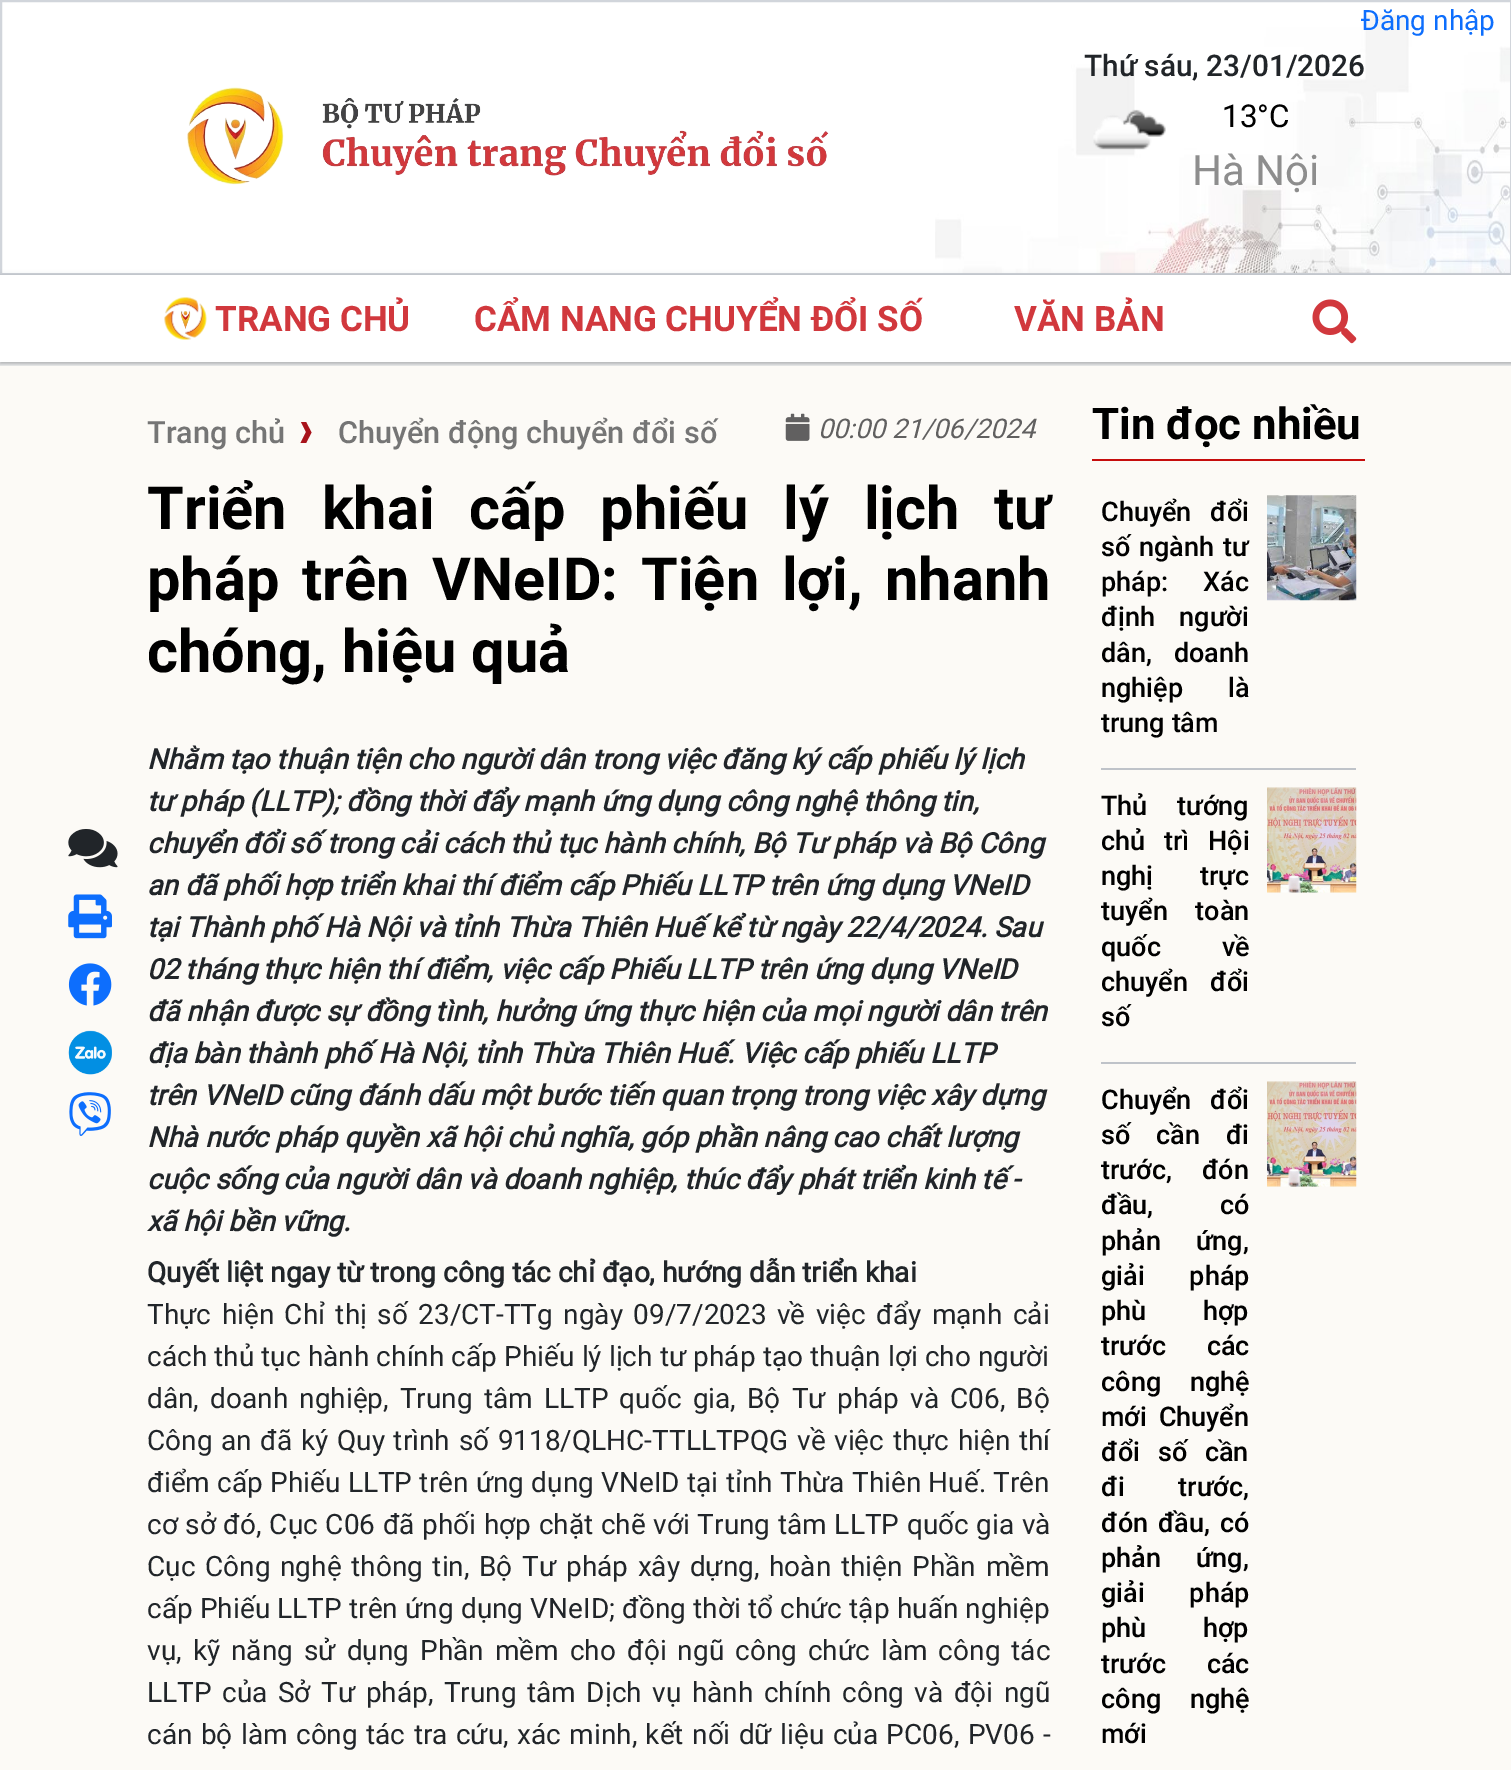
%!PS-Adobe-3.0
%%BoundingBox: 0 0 1511 1770
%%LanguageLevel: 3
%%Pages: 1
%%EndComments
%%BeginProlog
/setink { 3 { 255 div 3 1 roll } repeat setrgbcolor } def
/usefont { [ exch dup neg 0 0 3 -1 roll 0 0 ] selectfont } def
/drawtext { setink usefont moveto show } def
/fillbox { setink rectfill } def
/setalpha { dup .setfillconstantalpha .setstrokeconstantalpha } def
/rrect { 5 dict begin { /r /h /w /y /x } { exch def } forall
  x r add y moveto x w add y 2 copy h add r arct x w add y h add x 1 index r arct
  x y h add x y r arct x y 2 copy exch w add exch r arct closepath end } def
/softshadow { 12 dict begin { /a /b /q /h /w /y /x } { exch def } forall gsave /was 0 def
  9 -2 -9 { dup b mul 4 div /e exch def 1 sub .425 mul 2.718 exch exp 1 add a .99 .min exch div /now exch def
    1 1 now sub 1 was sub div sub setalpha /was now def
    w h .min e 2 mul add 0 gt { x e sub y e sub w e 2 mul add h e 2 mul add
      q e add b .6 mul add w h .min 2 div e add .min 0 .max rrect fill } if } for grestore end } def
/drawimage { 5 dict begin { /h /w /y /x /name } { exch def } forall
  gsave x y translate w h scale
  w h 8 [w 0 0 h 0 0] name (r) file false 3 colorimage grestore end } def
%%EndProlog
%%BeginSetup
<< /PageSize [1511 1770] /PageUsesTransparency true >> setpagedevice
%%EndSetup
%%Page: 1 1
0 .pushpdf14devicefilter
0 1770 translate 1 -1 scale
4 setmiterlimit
0 0 1511 1770 255 255 255 fillbox
(assets/img1.rgb) 935 14 575 259 drawimage
209 213 219 setink
2 setlinewidth
1 1 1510 273 rectstroke
(Đăng nhập) 1361 30 /Roboto-Regular 28 13 110 253 drawtext
(assets/img2.rgb) 187 87 642 98 drawimage
(Thứ sáu, 23/01/2026) 1084 76 /Roboto-Medium 29.75 33 37 41 drawtext
(assets/img3.rgb) 1093 109 73 41 drawimage
(13°C) 1222 127 /Roboto-Regular 31.5 0 0 0 drawtext
(Hà Nội) 1192 185 /Roboto-Regular 42 141 141 141 drawtext
60 64 67 setink
-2 275 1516 91 0 2.5 0.15 softshadow
0 277 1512 87 0 2 0.3 softshadow
0 275 1511 87 255 255 255 fillbox
(assets/img4.rgb) 164 297 43 43 drawimage
(TRANG CHỦ) 215 331 /Roboto-Bold 35 209 56 61 drawtext
(CẨM NANG CHUYỂN ĐỔI SỐ) 474 331 /Roboto-Bold 35 209 56 61 drawtext
(VĂN BẢN) 1014 331 /Roboto-Bold 35 209 56 61 drawtext
(assets/img5.rgb) 1312 299 45 45 drawimage
0 366 1511 1404 252 250 246 fillbox
(Trang chủ) 147 443 /Roboto-Medium 30.6 117 117 117 drawtext
168 19 27 setink
306 422 moveto 311.5 432.5 lineto 306 443 lineto 300.5 443 lineto 306 432 lineto 301 422 lineto closepath fill
(Chuyển động chuyển đổi số) 338 443 /Roboto-Medium 30.6 117 117 117 drawtext
(assets/img6.rgb) 785 413 25 28 drawimage
(00:00 21/06/2024) 818 438 /Roboto-Italic 27 97 96 96 drawtext
/Roboto-Bold 59.5 usefont
0 0 0 setink
147 529 moveto 20 0 32 (Triển khai cấp phiếu lý lịch tư) widthshow
147 600 moveto 8 0 32 (pháp trên VNeID: Tiện lợi, nhanh) widthshow
(chóng, hiệu quả) 147 672 /Roboto-Bold 59.5 0 0 0 drawtext
(assets/img7.rgb) 68 829 50 39 drawimage
(assets/img8.rgb) 68 894 44 45 drawimage
(assets/img9.rgb) 68 963 44 43 drawimage
(assets/img10.rgb) 68 1030 44 45 drawimage
(assets/img11.rgb) 69 1092 42 44 drawimage
(Nhằm tạo thuận tiện cho người dân trong việc đăng ký cấp phiếu lý lịch) 147 769 /Roboto-BoldItalic 28 33 37 41 drawtext
(tư pháp \(LLTP\); đồng thời đẩy mạnh ứng dụng công nghệ thông tin,) 147 811 /Roboto-BoldItalic 28 33 37 41 drawtext
(chuyển đổi số trong cải cách thủ tục hành chính, Bộ Tư pháp và Bộ Công) 147 853 /Roboto-BoldItalic 28 33 37 41 drawtext
(an đã phối hợp triển khai thí điểm cấp Phiếu LLTP trên ứng dụng VNeID) 147 895 /Roboto-BoldItalic 28 33 37 41 drawtext
(tại Thành phố Hà Nội và tỉnh Thừa Thiên Huế kể từ ngày 22/4/2024. Sau) 147 937 /Roboto-BoldItalic 28 33 37 41 drawtext
(02 tháng thực hiện thí điểm, việc cấp Phiếu LLTP trên ứng dụng VNeID) 147 979 /Roboto-BoldItalic 28 33 37 41 drawtext
(đã nhận được sự đồng tình, hưởng ứng thực hiện của mọi người dân trên) 147 1021 /Roboto-BoldItalic 28 33 37 41 drawtext
(địa bàn thành phố Hà Nội, tỉnh Thừa Thiên Huế. Việc cấp phiếu LLTP) 147 1063 /Roboto-BoldItalic 28 33 37 41 drawtext
(trên VNeID cũng đánh dấu một bước tiến quan trọng trong việc xây dựng) 147 1105 /Roboto-BoldItalic 28 33 37 41 drawtext
(Nhà nước pháp quyền xã hội chủ nghĩa, góp phần nâng cao chất lượng) 147 1147 /Roboto-BoldItalic 28 33 37 41 drawtext
(cuộc sống của người dân và doanh nghiệp, thúc đẩy phát triển kinh tế -) 147 1189 /Roboto-BoldItalic 28 33 37 41 drawtext
(xã hội bền vững.) 147 1231 /Roboto-BoldItalic 28 33 37 41 drawtext
(Quyết liệt ngay từ trong công tác chỉ đạo, hướng dẫn triển khai) 147 1282 /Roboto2-Bold 28 33 37 41 drawtext
/Roboto-Regular 28 usefont
147 1324 moveto 3.5 0 32 (Thực hiện Chỉ thị số 23/CT-TTg ngày 09/7/2023 về việc đẩy mạnh cải) widthshow
147 1366 moveto 0.25 0 32 (cách thủ tục hành chính cấp Phiếu lý lịch tư pháp tạo thuận lợi cho người) widthshow
147 1408 moveto 4.25 0 32 (dân, doanh nghiệp, Trung tâm LLTP quốc gia, Bộ Tư pháp và C06, Bộ) widthshow
147 1450 moveto 1.7 0 32 (Công an đã ký Quy trình số 9118/QLHC-TTLLTPQG về việc thực hiện thí) widthshow
147 1492 moveto 0.4 0 32 (điểm cấp Phiếu LLTP trên ứng dụng VNeID tại tỉnh Thừa Thiên Huế. Trên) widthshow
147 1534 moveto 0.75 0 32 (cơ sở đó, Cục C06 đã phối hợp chặt chẽ với Trung tâm LLTP quốc gia và) widthshow
147 1576 moveto 2.75 0 32 (Cục Công nghệ thông tin, Bộ Tư pháp xây dựng, hoàn thiện Phần mềm) widthshow
147 1618 moveto 0.3 0 32 (cấp Phiếu LLTP trên ứng dụng VNeID; đồng thời tổ chức tập huấn nghiệp) widthshow
147 1660 moveto 4.1 0 32 (vụ, kỹ năng sử dụng Phần mềm cho đội ngũ công chức làm công tác) widthshow
147 1702 moveto 3.6 0 32 (LLTP của Sở Tư pháp, Trung tâm Dịch vụ hành chính công và đội ngũ) widthshow
147 1744 moveto 1.5 0 32 (cán bộ làm công tác tra cứu, xác minh, kết nối dữ liệu của PC06, PV06 -) widthshow
1092 459 273 2 198 13 13 fillbox
(Tin đọc nhiều) 1092 439 /Roboto-Bold 43.75 0 0 0 drawtext
1101 768 255 2 191 195 201 fillbox
/Roboto-Medium 27 usefont
0 0 0 setink
1101 521 moveto 12 0 32 (Chuyển đổi) widthshow
1101 556 moveto 2 0 32 (số ngành tư) widthshow
1101 591 moveto 28 0 32 (pháp: Xác) widthshow
1101 626 moveto 18 0 32 (định người) widthshow
1101 662 moveto 15 0 32 (dân, doanh) widthshow
1101 697 moveto 38 0 32 (nghiệp là) widthshow
(trung tâm) 1101 732 /Roboto-Medium 27 0 0 0 drawtext
(assets/img12.rgb) 1267 495 90 106 drawimage
1101 1062 255 2 191 195 201 fillbox
0 0 0 setink
1101 815 moveto 23 0 32 (Thủ tướng) widthshow
1101 850 moveto 12 0 32 (chủ trì Hội) widthshow
1101 885 moveto 40 0 32 (nghị trực) widthshow
1101 920 moveto 21 0 32 (tuyển toàn) widthshow
1101 956 moveto 54 0 32 (quốc về) widthshow
1101 991 moveto 16 0 32 (chuyển đổi) widthshow
(số) 1101 1026 /Roboto-Medium 27 0 0 0 drawtext
(assets/img13.rgb) 1267 787 90 106 drawimage
1101 1109 moveto 12 0 32 (Chuyển đổi) widthshow
1101 1144 moveto 19 0 32 (số cần đi) widthshow
1101 1179 moveto 23 0 32 (trước, đón) widthshow
1101 1214 moveto 60 0 32 (đầu, có) widthshow
1101 1250 moveto 28 0 32 (phản ứng,) widthshow
1101 1285 moveto 38 0 32 (giải pháp) widthshow
1101 1320 moveto 50 0 32 (phù hợp) widthshow
1101 1355 moveto 34 0 32 (trước các) widthshow
1101 1391 moveto 22 0 32 (công nghệ) widthshow
1101 1426 moveto 5 0 32 (mới Chuyển) widthshow
1101 1461 moveto 11 0 32 (đổi số cần) widthshow
1101 1496 moveto 47 0 32 (đi trước,) widthshow
1101 1532 moveto 3 0 32 (đón đầu, có) widthshow
1101 1567 moveto 28 0 32 (phản ứng,) widthshow
1101 1602 moveto 38 0 32 (giải pháp) widthshow
1101 1637 moveto 50 0 32 (phù hợp) widthshow
1101 1673 moveto 34 0 32 (trước các) widthshow
1101 1708 moveto 22 0 32 (công nghệ) widthshow
(mới) 1101 1743 /Roboto-Medium 27 0 0 0 drawtext
(assets/img14.rgb) 1267 1081 90 106 drawimage
.poppdf14devicefilter showpage
%%EOF
